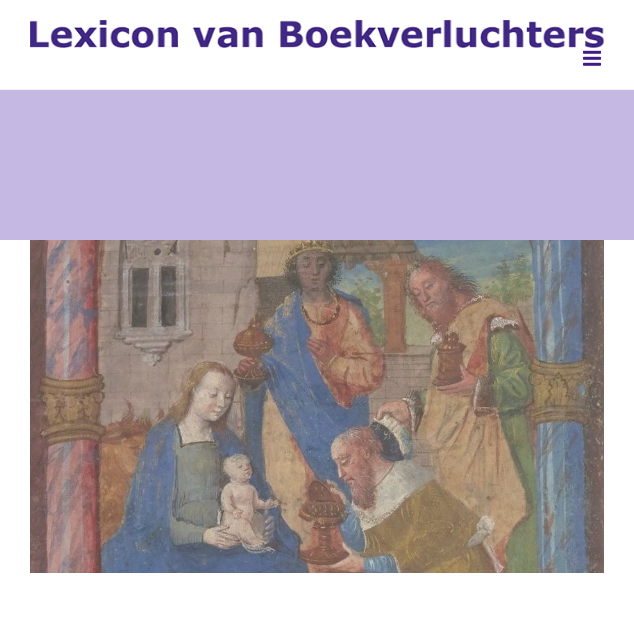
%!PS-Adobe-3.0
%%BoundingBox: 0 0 634 625
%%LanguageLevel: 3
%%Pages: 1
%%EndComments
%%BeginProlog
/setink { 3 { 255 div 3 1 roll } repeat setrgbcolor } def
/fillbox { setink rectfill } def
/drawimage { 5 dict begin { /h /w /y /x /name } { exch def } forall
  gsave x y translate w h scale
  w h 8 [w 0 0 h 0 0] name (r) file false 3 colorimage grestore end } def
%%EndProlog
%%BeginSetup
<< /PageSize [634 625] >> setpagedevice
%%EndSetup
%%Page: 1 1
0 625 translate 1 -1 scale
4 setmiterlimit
0 0 634 625 255 255 255 fillbox
0 89 634 1 242 242 242 fillbox
(assets/img1.rgb) 30 20 574 28 drawimage
(assets/img2.rgb) 583 50 18 16 drawimage
0 90 634 150 197 184 226 fillbox
(assets/img3.rgb) 30 240 574 333 drawimage
showpage
%%EOF
